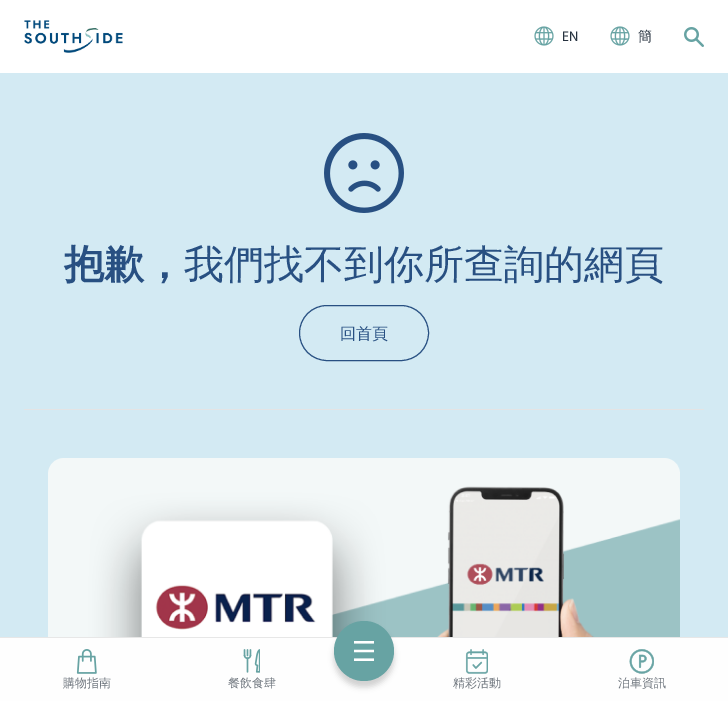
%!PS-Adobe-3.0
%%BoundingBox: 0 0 728 701
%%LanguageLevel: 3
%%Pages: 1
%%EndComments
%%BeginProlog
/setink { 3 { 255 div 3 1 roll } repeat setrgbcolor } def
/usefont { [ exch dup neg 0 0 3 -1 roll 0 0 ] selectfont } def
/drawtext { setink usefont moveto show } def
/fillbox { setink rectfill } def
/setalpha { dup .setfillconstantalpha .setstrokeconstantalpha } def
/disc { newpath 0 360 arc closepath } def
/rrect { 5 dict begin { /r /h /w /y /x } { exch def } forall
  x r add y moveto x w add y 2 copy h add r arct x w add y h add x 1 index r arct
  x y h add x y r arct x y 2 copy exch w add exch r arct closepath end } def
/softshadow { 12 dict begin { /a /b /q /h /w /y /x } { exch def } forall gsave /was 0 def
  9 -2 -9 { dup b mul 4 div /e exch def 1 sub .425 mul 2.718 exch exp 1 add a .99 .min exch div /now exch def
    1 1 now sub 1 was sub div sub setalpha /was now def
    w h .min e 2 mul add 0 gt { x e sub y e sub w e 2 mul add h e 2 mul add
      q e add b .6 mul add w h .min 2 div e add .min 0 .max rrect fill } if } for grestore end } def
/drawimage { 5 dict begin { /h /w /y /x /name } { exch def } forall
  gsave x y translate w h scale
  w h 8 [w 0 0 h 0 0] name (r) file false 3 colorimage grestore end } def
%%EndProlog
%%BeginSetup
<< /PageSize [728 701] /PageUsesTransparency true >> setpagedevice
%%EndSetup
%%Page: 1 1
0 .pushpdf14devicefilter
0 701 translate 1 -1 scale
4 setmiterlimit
0 0 728 701 211 234 243 fillbox
0 0 728 73 255 255 255 fillbox
(assets/img1.rgb) 24 20 99 33 drawimage
(assets/img2.rgb) 534 26 20 20 drawimage
(EN) 562 41 /Myriad-Regular 14 37 49 62 drawtext
(assets/img2.rgb) 610 26 20 20 drawimage
(簡) 638 41 /WenQuanYiZenHei-Medium 14 37 49 62 drawtext
(assets/img3.rgb) 684 27 20 20 drawimage
0 638 728 63 254 254 254 fillbox
0 637 728 1 231 231 231 fillbox
(assets/img10.rgb) 48 458 632 179 drawimage
0 0 0 setink
334 627 60 60 30 3 0.18 softshadow
103 163 163 setink
364 651 30 disc fill
(assets/img4.rgb) 354 641 20 20 drawimage
(assets/img5.rgb) 76 649 21 25 drawimage
(購物指南) 63 687 /WenQuanYiZenHei-Medium 12 112 119 127 drawtext
(assets/img6.rgb) 243 649 17 24 drawimage
(餐飲食肆) 228 687 /WenQuanYiZenHei-Medium 12 112 119 127 drawtext
(assets/img7.rgb) 465 649 23 25 drawimage
(精彩活動) 453 687 /WenQuanYiZenHei-Medium 12 112 119 127 drawtext
(assets/img8.rgb) 629 649 25 25 drawimage
(泊車資訊) 618 687 /WenQuanYiZenHei-Medium 12 112 119 127 drawtext
24 409 680 1 228 228 228 fillbox
(assets/img9.rgb) 324 133 80 80 drawimage
(抱歉，) 64 278 /WenQuanYiZenHei-Bold 40 40 80 130 drawtext
(我們找不到你所查詢的網頁) 184 278 /WenQuanYiZenHei-Medium 40 40 80 130 drawtext
299.5 305.5 129 55 27.5 rrect stroke
(回首頁) 340 339 /WenQuanYiZenHei-Medium 16 40 80 130 drawtext
.poppdf14devicefilter showpage
%%EOF
